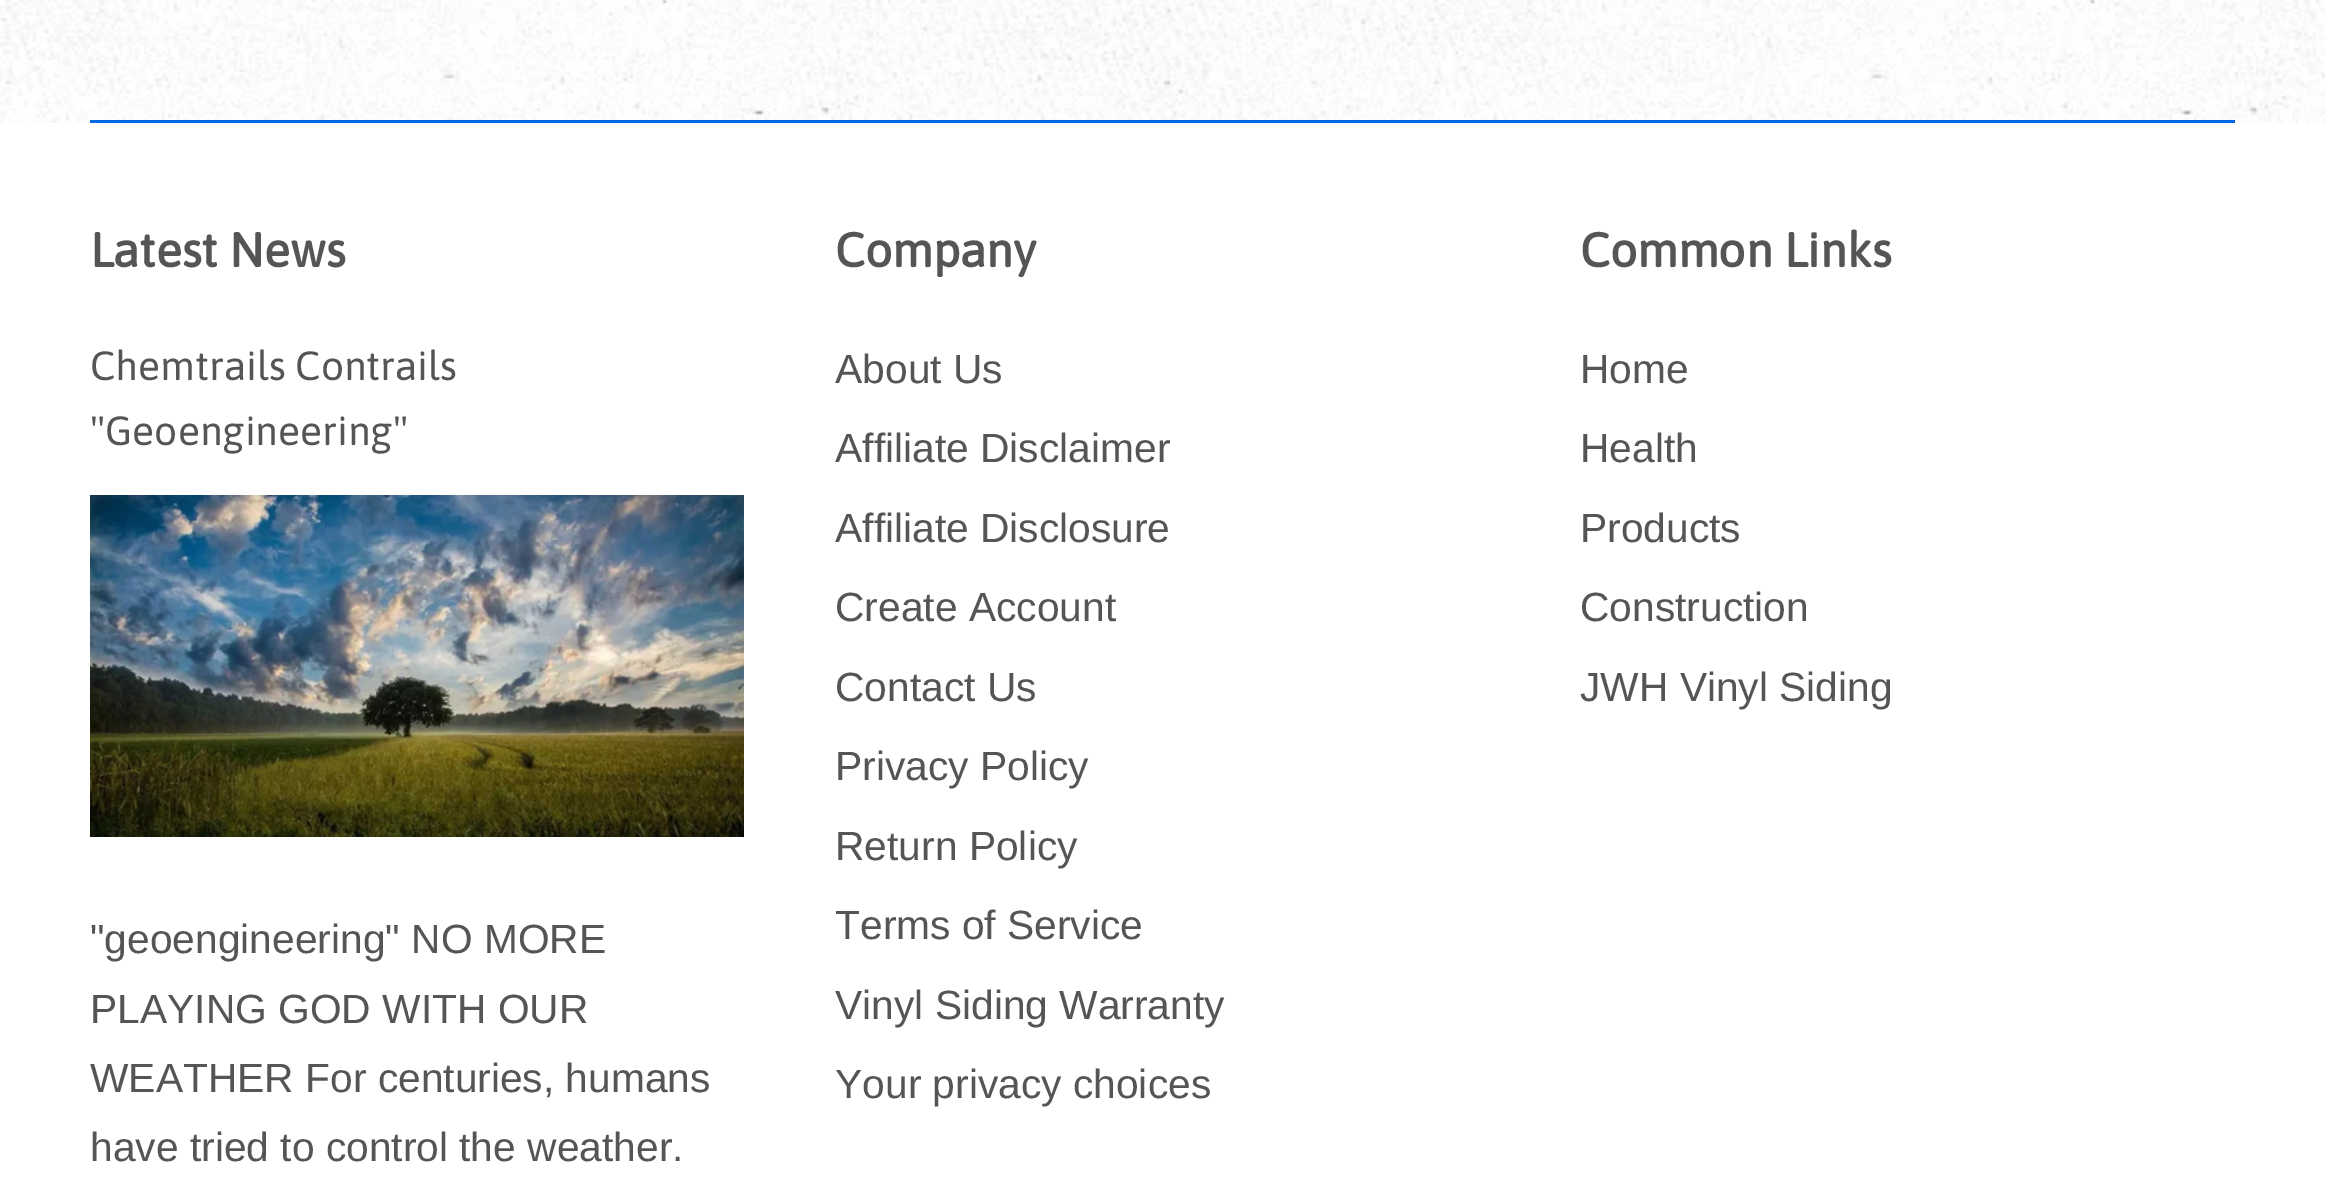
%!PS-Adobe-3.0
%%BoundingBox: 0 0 2325 1178
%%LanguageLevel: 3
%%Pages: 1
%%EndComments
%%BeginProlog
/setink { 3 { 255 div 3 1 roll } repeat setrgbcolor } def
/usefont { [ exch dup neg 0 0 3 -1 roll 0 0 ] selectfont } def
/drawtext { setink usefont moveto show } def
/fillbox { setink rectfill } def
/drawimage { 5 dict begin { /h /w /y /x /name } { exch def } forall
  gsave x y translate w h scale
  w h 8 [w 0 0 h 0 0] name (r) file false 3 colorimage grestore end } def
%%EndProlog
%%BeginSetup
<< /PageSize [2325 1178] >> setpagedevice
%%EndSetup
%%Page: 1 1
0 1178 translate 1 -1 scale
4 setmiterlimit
0 0 2325 1178 255 255 255 fillbox
(assets/img1.rgb) 0 0 2325 123 drawimage
90 120 2145 3 0 105 227 fillbox
(Latest News) 90 267 /Asap-Bold 48 85 85 85 drawtext
(Chemtrails Contrails) 90 380 /Asap-Regular 40.75 85 85 85 drawtext
("Geoengineering") 90 445 /Asap-Regular 40.75 85 85 85 drawtext
(assets/img2.rgb) 90 495 654 342 drawimage
("geoengineering" NO MORE) 90 953 /LiberationSans-Regular 40.75 85 85 85 drawtext
(PLAYING GOD WITH OUR) 90 1023 /LiberationSans-Regular 40.75 85 85 85 drawtext
(WEATHER For centuries, humans) 90 1092 /LiberationSans-Regular 40.75 85 85 85 drawtext
(have tried to control the weather.) 90 1161 /LiberationSans-Regular 40.75 85 85 85 drawtext
(Company) 835 267 /Asap-Bold 48 85 85 85 drawtext
(About Us) 835 383 /LiberationSans-Regular 40.75 85 85 85 drawtext
(Affiliate Disclaimer) 835 462 /LiberationSans-Regular 40.75 85 85 85 drawtext
(Affiliate Disclosure) 835 542 /LiberationSans-Regular 40.75 85 85 85 drawtext
(Create Account) 835 621 /LiberationSans-Regular 40.75 85 85 85 drawtext
(Contact Us) 835 701 /LiberationSans-Regular 40.75 85 85 85 drawtext
(Privacy Policy) 835 780 /LiberationSans-Regular 40.75 85 85 85 drawtext
(Return Policy) 835 860 /LiberationSans-Regular 40.75 85 85 85 drawtext
(Terms of Service) 835 939 /LiberationSans-Regular 40.75 85 85 85 drawtext
(Vinyl Siding Warranty) 835 1019 /LiberationSans-Regular 40.75 85 85 85 drawtext
(Your privacy choices) 835 1098 /LiberationSans-Regular 40.75 85 85 85 drawtext
(Common Links) 1580 267 /Asap-Bold 48 85 85 85 drawtext
(Home) 1580 383 /LiberationSans-Regular 40.75 85 85 85 drawtext
(Health) 1580 462 /LiberationSans-Regular 40.75 85 85 85 drawtext
(Products) 1580 542 /LiberationSans-Regular 40.75 85 85 85 drawtext
(Construction) 1580 621 /LiberationSans-Regular 40.75 85 85 85 drawtext
(JWH Vinyl Siding) 1580 701 /LiberationSans-Regular 40.75 85 85 85 drawtext
showpage
%%EOF
